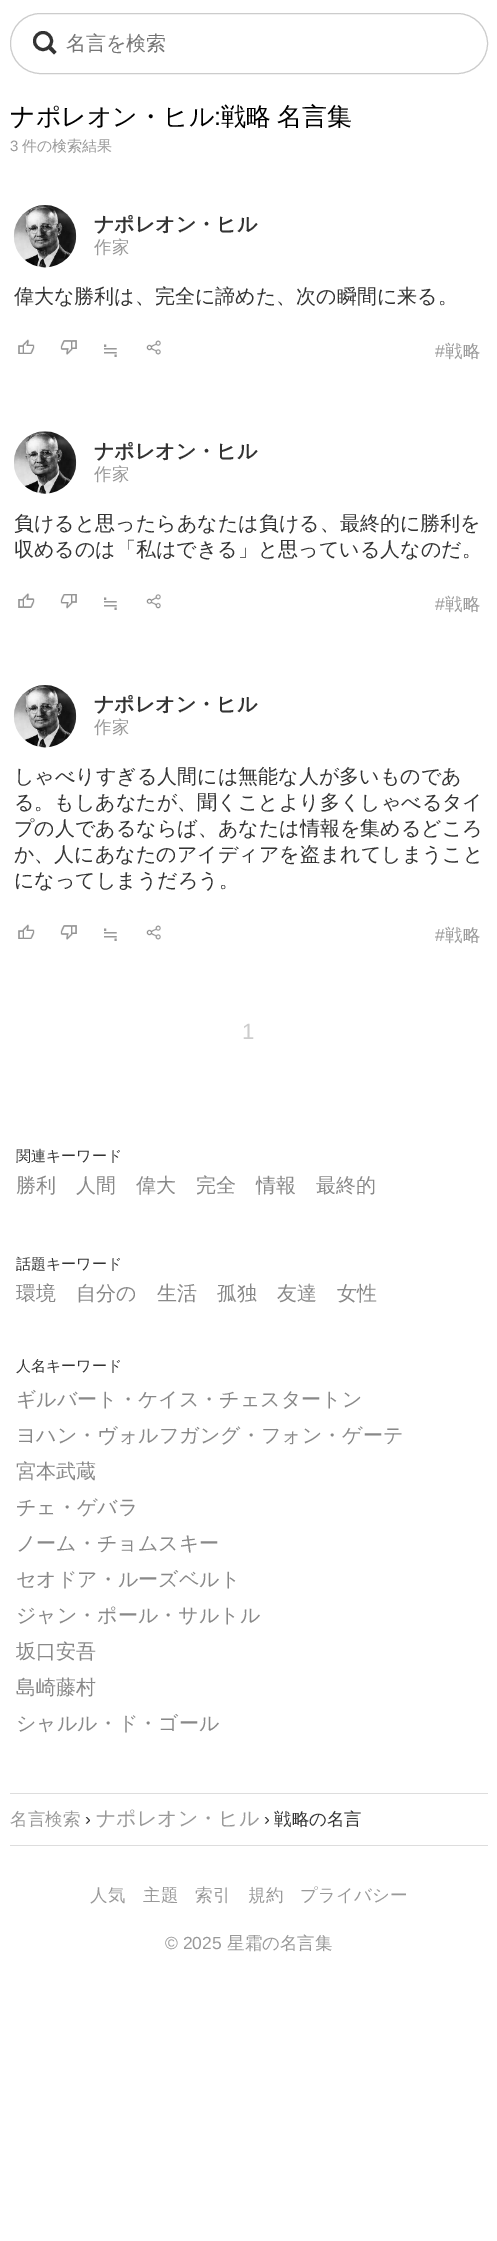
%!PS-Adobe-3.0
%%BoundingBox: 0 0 497 2241
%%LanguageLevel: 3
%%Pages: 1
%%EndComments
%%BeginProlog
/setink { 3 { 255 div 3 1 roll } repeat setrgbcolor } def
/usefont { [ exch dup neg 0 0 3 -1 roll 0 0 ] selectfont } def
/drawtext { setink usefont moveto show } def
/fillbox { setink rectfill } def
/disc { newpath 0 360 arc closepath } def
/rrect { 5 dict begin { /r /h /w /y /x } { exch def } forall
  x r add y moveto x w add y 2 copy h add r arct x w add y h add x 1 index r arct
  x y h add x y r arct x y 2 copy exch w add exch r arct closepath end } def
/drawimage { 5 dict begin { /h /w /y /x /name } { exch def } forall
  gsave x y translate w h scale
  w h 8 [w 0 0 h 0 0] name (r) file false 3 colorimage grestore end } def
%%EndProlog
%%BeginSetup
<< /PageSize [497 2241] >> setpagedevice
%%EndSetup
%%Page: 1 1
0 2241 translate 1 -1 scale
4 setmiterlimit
0 0 497 2241 255 255 255 fillbox
204 204 204 setink
10.5 13.5 477 60 30 rrect stroke
51 51 51 setink
3 setlinewidth
43 41 8.5 disc stroke
51.5 46.5 moveto 56.5 52 lineto 54 54.5 lineto 48.5 49 lineto closepath fill
(名言を検索) 66 50 /WenQuanYiZenHei-Medium 20 117 117 117 drawtext
(ナポレオン・ヒル) 10 125 /WenQuanYiZenHei-Medium 25 0 0 0 drawtext
(:) 214 125 /LiberationSans-Regular 25 0 0 0 drawtext
/WenQuanYiZenHei-Medium 25 usefont
221 125 moveto -1 0 32 (戦略 名言集) widthshow
(3) 10 151 /LiberationSans-Regular 15 153 153 153 drawtext
(件の検索結果) 22 151 /WenQuanYiZenHei-Medium 15 153 153 153 drawtext
(assets/img1.rgb) 13 205 64 63 drawimage
(ナポレオン・ヒル) 94 231 /WenQuanYiZenHei-Bold 20 51 51 51 drawtext
(作家) 94 253 /WenQuanYiZenHei-Medium 17.5 153 153 153 drawtext
(偉大な勝利は、完全に諦めた、次の瞬間に来る。) 14 303 /WenQuanYiZenHei-Medium 20 51 51 51 drawtext
(assets/img2.rgb) 18 339 17 15 drawimage
(assets/img3.rgb) 60 340 17 15 drawimage
(≒) 102 357 /DejaVuSans-Regular 20 153 153 153 drawtext
(assets/img4.rgb) 146 340 15 15 drawimage
(#) 435 357 /LiberationSans-Regular 17.5 153 153 153 drawtext
(戦略) 445 357 /WenQuanYiZenHei-Medium 17.5 153 153 153 drawtext
(assets/img5.rgb) 14 431 63 63 drawimage
(ナポレオン・ヒル) 94 458 /WenQuanYiZenHei-Bold 20 51 51 51 drawtext
(作家) 94 480 /WenQuanYiZenHei-Medium 17.5 153 153 153 drawtext
(負けると思ったらあなたは負ける、最終的に勝利を) 14 530 /WenQuanYiZenHei-Medium 20 51 51 51 drawtext
(収めるのは「私はできる」と思っている人なのだ。) 14 556 /WenQuanYiZenHei-Medium 20 51 51 51 drawtext
(assets/img6.rgb) 18 593 17 15 drawimage
(assets/img7.rgb) 60 594 17 15 drawimage
(≒) 102 610 /DejaVuSans-Regular 20 153 153 153 drawtext
(assets/img8.rgb) 146 594 15 15 drawimage
(#) 435 610 /LiberationSans-Regular 17.5 153 153 153 drawtext
(戦略) 445 610 /WenQuanYiZenHei-Medium 17.5 153 153 153 drawtext
(assets/img9.rgb) 13 685 64 63 drawimage
(ナポレオン・ヒル) 94 711 /WenQuanYiZenHei-Bold 20 51 51 51 drawtext
(作家) 94 733 /WenQuanYiZenHei-Medium 17.5 153 153 153 drawtext
(しゃべりすぎる人間には無能な人が多いものであ) 14 783 /WenQuanYiZenHei-Medium 20 51 51 51 drawtext
(る。もしあなたが、聞くことより多くしゃべるタイ) 14 809 /WenQuanYiZenHei-Medium 20 51 51 51 drawtext
(プの人であるならば、あなたは情報を集めるどころ) 14 835 /WenQuanYiZenHei-Medium 20 51 51 51 drawtext
(か、人にあなたのアイディアを盗まれてしまうこと) 14 861 /WenQuanYiZenHei-Medium 20 51 51 51 drawtext
(になってしまうだろう。) 14 887 /WenQuanYiZenHei-Medium 20 51 51 51 drawtext
(assets/img2.rgb) 18 924 17 15 drawimage
(assets/img3.rgb) 60 925 17 15 drawimage
(≒) 102 941 /DejaVuSans-Regular 20 153 153 153 drawtext
(assets/img4.rgb) 146 925 15 15 drawimage
(#) 435 941 /LiberationSans-Regular 17.5 153 153 153 drawtext
(戦略) 445 941 /WenQuanYiZenHei-Medium 17.5 153 153 153 drawtext
(1) 242 1039 /LiberationSans-Regular 22 204 204 204 drawtext
(関連キーワード) 16 1161 /WenQuanYiZenHei-Medium 15 51 51 51 drawtext
(勝利) 16 1192 /WenQuanYiZenHei-Medium 20 136 136 136 drawtext
(人間) 76 1192 /WenQuanYiZenHei-Medium 20 136 136 136 drawtext
(偉大) 136 1192 /WenQuanYiZenHei-Medium 20 136 136 136 drawtext
(完全) 196 1192 /WenQuanYiZenHei-Medium 20 136 136 136 drawtext
(情報) 256 1192 /WenQuanYiZenHei-Medium 20 136 136 136 drawtext
(最終的) 316 1192 /WenQuanYiZenHei-Medium 20 136 136 136 drawtext
(話題キーワード) 16 1269 /WenQuanYiZenHei-Medium 15 51 51 51 drawtext
(環境) 16 1300 /WenQuanYiZenHei-Medium 20 136 136 136 drawtext
(自分の) 76 1300 /WenQuanYiZenHei-Medium 20 136 136 136 drawtext
(生活) 157 1300 /WenQuanYiZenHei-Medium 20 136 136 136 drawtext
(孤独) 217 1300 /WenQuanYiZenHei-Medium 20 136 136 136 drawtext
(友達) 277 1300 /WenQuanYiZenHei-Medium 20 136 136 136 drawtext
(女性) 337 1300 /WenQuanYiZenHei-Medium 20 136 136 136 drawtext
(人名キーワード) 16 1371 /WenQuanYiZenHei-Medium 15 51 51 51 drawtext
(ギルバート・ケイス・チェスタートン) 16 1406 /WenQuanYiZenHei-Medium 20 136 136 136 drawtext
(ヨハン・ヴォルフガング・フォン・ゲーテ) 16 1442 /WenQuanYiZenHei-Medium 20 136 136 136 drawtext
(宮本武蔵) 16 1478 /WenQuanYiZenHei-Medium 20 136 136 136 drawtext
(チェ・ゲバラ) 16 1514 /WenQuanYiZenHei-Medium 20 136 136 136 drawtext
(ノーム・チョムスキー) 16 1550 /WenQuanYiZenHei-Medium 20 136 136 136 drawtext
(セオドア・ルーズベルト) 16 1586 /WenQuanYiZenHei-Medium 20 136 136 136 drawtext
(ジャン・ポール・サルトル) 16 1622 /WenQuanYiZenHei-Medium 20 136 136 136 drawtext
(坂口安吾) 16 1658 /WenQuanYiZenHei-Medium 20 136 136 136 drawtext
(島崎藤村) 16 1694 /WenQuanYiZenHei-Medium 20 136 136 136 drawtext
(シャルル・ド・ゴール) 16 1730 /WenQuanYiZenHei-Medium 20 136 136 136 drawtext
10 1793 478 1 221 221 221 fillbox
10 1845 478 1 221 221 221 fillbox
(名言検索) 10 1825 /WenQuanYiZenHei-Medium 17.5 153 153 153 drawtext
(›) 85 1825 /LiberationSans-Regular 17.5 51 51 51 drawtext
(ナポレオン・ヒル) 96 1825 /WenQuanYiZenHei-Medium 20 153 153 153 drawtext
(›) 264 1825 /LiberationSans-Regular 17.5 51 51 51 drawtext
(戦略の名言) 274 1825 /WenQuanYiZenHei-Medium 17.5 51 51 51 drawtext
(人気) 90 1901 /WenQuanYiZenHei-Medium 17.5 153 153 153 drawtext
(主題) 143 1901 /WenQuanYiZenHei-Medium 17.5 153 153 153 drawtext
(索引) 195 1901 /WenQuanYiZenHei-Medium 17.5 153 153 153 drawtext
(規約) 248 1901 /WenQuanYiZenHei-Medium 17.5 153 153 153 drawtext
(プライバシー) 300 1901 /WenQuanYiZenHei-Medium 17.5 153 153 153 drawtext
(© 2025) 165 1949 /LiberationSans-Regular 17.5 153 153 153 drawtext
(星霜の名言集) 227 1949 /WenQuanYiZenHei-Medium 17.5 153 153 153 drawtext
showpage
%%EOF
